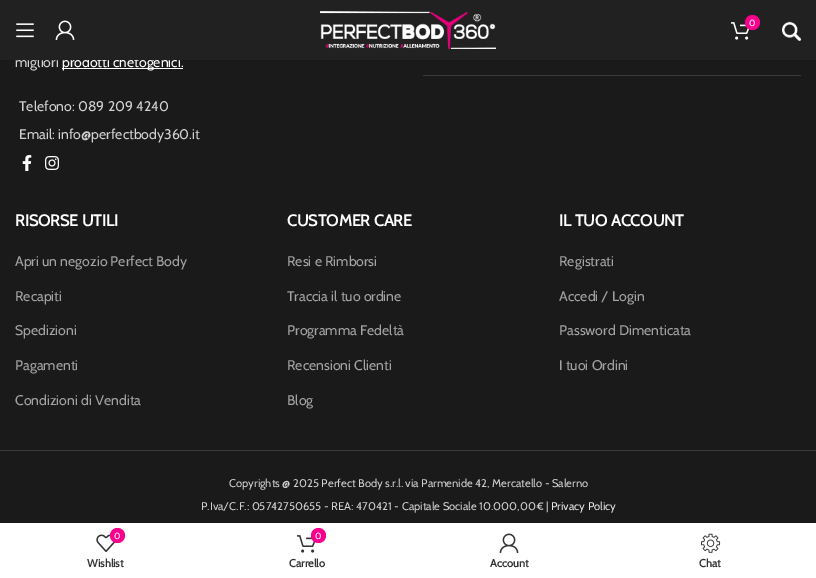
%!PS-Adobe-3.0
%%BoundingBox: 0 0 816 578
%%LanguageLevel: 3
%%Pages: 1
%%EndComments
%%BeginProlog
/setink { 3 { 255 div 3 1 roll } repeat setrgbcolor } def
/usefont { [ exch dup neg 0 0 3 -1 roll 0 0 ] selectfont } def
/drawtext { setink usefont moveto show } def
/fillbox { setink rectfill } def
/setalpha { dup .setfillconstantalpha .setstrokeconstantalpha } def
/disc { newpath 0 360 arc closepath } def
/rrect { 5 dict begin { /r /h /w /y /x } { exch def } forall
  x r add y moveto x w add y 2 copy h add r arct x w add y h add x 1 index r arct
  x y h add x y r arct x y 2 copy exch w add exch r arct closepath end } def
/softshadow { 12 dict begin { /a /b /q /h /w /y /x } { exch def } forall gsave /was 0 def
  9 -2 -9 { dup b mul 4 div /e exch def 1 sub .425 mul 2.718 exch exp 1 add a .99 .min exch div /now exch def
    1 1 now sub 1 was sub div sub setalpha /was now def
    w h .min e 2 mul add 0 gt { x e sub y e sub w e 2 mul add h e 2 mul add
      q e add b .6 mul add w h .min 2 div e add .min 0 .max rrect fill } if } for grestore end } def
/drawimage { 5 dict begin { /h /w /y /x /name } { exch def } forall
  gsave x y translate w h scale
  w h 8 [w 0 0 h 0 0] name (r) file false 3 colorimage grestore end } def
%%EndProlog
%%BeginSetup
<< /PageSize [816 578] /PageUsesTransparency true >> setpagedevice
%%EndSetup
%%Page: 1 1
0 .pushpdf14devicefilter
0 578 translate 1 -1 scale
4 setmiterlimit
0 0 816 578 26 26 26 fillbox
0 0 0 setink
0 1 816 60 0 1.5 0.1 softshadow
(migliori) 15 67 /Cabin-Regular 14 209 209 209 drawtext
62 68 121 1 255 255 255 fillbox
(prodotti chetogenici.) 62 67 /Cabin-Regular 14 255 255 255 drawtext
0 0 816 60 33 33 33 fillbox
(assets/img1.rgb) 16 23 18 15 drawimage
(assets/img2.rgb) 55 20 20 20 drawimage
(assets/img3.rgb) 320 11 176 38 drawimage
(assets/img4.rgb) 731 22 19 18 drawimage
248 0 139 setink
752.5 22.5 7.5 disc fill
(0) 749 26 /Cabin-Regular 9 255 255 255 drawtext
(assets/img5.rgb) 782 21 19 20 drawimage
(Telefono: 089 209 4240) 19 111 /Cabin-Regular 14 209 209 209 drawtext
(Email: info@perfectbody360.it) 19 139 /Cabin-Regular 14 209 209 209 drawtext
(assets/img6.rgb) 22 155 10 16 drawimage
(assets/img7.rgb) 45 156 14 14 drawimage
423 75 378 1 60 60 60 fillbox
(RISORSE UTILI) 15 226 /Cabin-Bold 16 255 255 255 drawtext
(Apri un negozio Perfect Body) 15 266 /Cabin-Regular 14 163 163 163 drawtext
(Recapiti) 15 301 /Cabin-Regular 14 163 163 163 drawtext
(Spedizioni) 15 335 /Cabin-Regular 14 163 163 163 drawtext
(Pagamenti) 15 370 /Cabin-Regular 14 163 163 163 drawtext
(Condizioni di Vendita) 15 405 /Cabin-Regular 14 163 163 163 drawtext
(CUSTOMER CARE) 287 226 /Cabin-Bold 16 255 255 255 drawtext
(Resi e Rimborsi) 287 266 /Cabin-Regular 14 163 163 163 drawtext
(Traccia il tuo ordine) 287 301 /Cabin-Regular 14 163 163 163 drawtext
(Programma Fedeltà) 287 335 /Cabin-Regular 14 163 163 163 drawtext
(Recensioni Clienti) 287 370 /Cabin-Regular 14 163 163 163 drawtext
(Blog) 287 405 /Cabin-Regular 14 163 163 163 drawtext
(IL TUO ACCOUNT) 559 226 /Cabin-Bold 16 255 255 255 drawtext
(Registrati) 559 266 /Cabin-Regular 14 163 163 163 drawtext
(Accedi / Login) 559 301 /Cabin-Regular 14 163 163 163 drawtext
(Password Dimenticata) 559 335 /Cabin-Regular 14 163 163 163 drawtext
(I tuoi Ordini) 559 370 /Cabin-Regular 14 163 163 163 drawtext
0 450 816 1 60 60 60 fillbox
(Copyrights @ 2025 Perfect Body s.r.l. via Parmenide 42, Mercatello - Salerno) 229 487 /Cabin-Regular 11.2 209 209 209 drawtext
(P.Iva/C.F.: 05742750655 - REA: 470421 - Capitale Sociale 10.000,00€ |) 201 510 /Cabin-Regular 11.2 209 209 209 drawtext
(Privacy Policy) 551 510 /Cabin-Regular 11.2 232 232 232 drawtext
0 523 816 55 255 255 255 fillbox
(assets/img8.rgb) 96 534 20 18 drawimage
248 0 139 setink
117.5 535.5 7.5 disc fill
(0) 114 539 /Cabin-Regular 9 255 255 255 drawtext
(Wishlist) 87 567 /Cabin-Bold 11 51 51 51 drawtext
(assets/img9.rgb) 297 535 19 18 drawimage
248 0 139 setink
318.5 535.5 7.5 disc fill
(0) 315 539 /Cabin-Regular 9 255 255 255 drawtext
(Carrello) 289 567 /Cabin-Bold 11 51 51 51 drawtext
(assets/img10.rgb) 499 533 20 20 drawimage
(Account) 490 567 /Cabin-Bold 11 51 51 51 drawtext
(assets/img11.rgb) 701 533 20 20 drawimage
(Chat) 699 567 /Cabin-Bold 11 51 51 51 drawtext
.poppdf14devicefilter showpage
%%EOF
